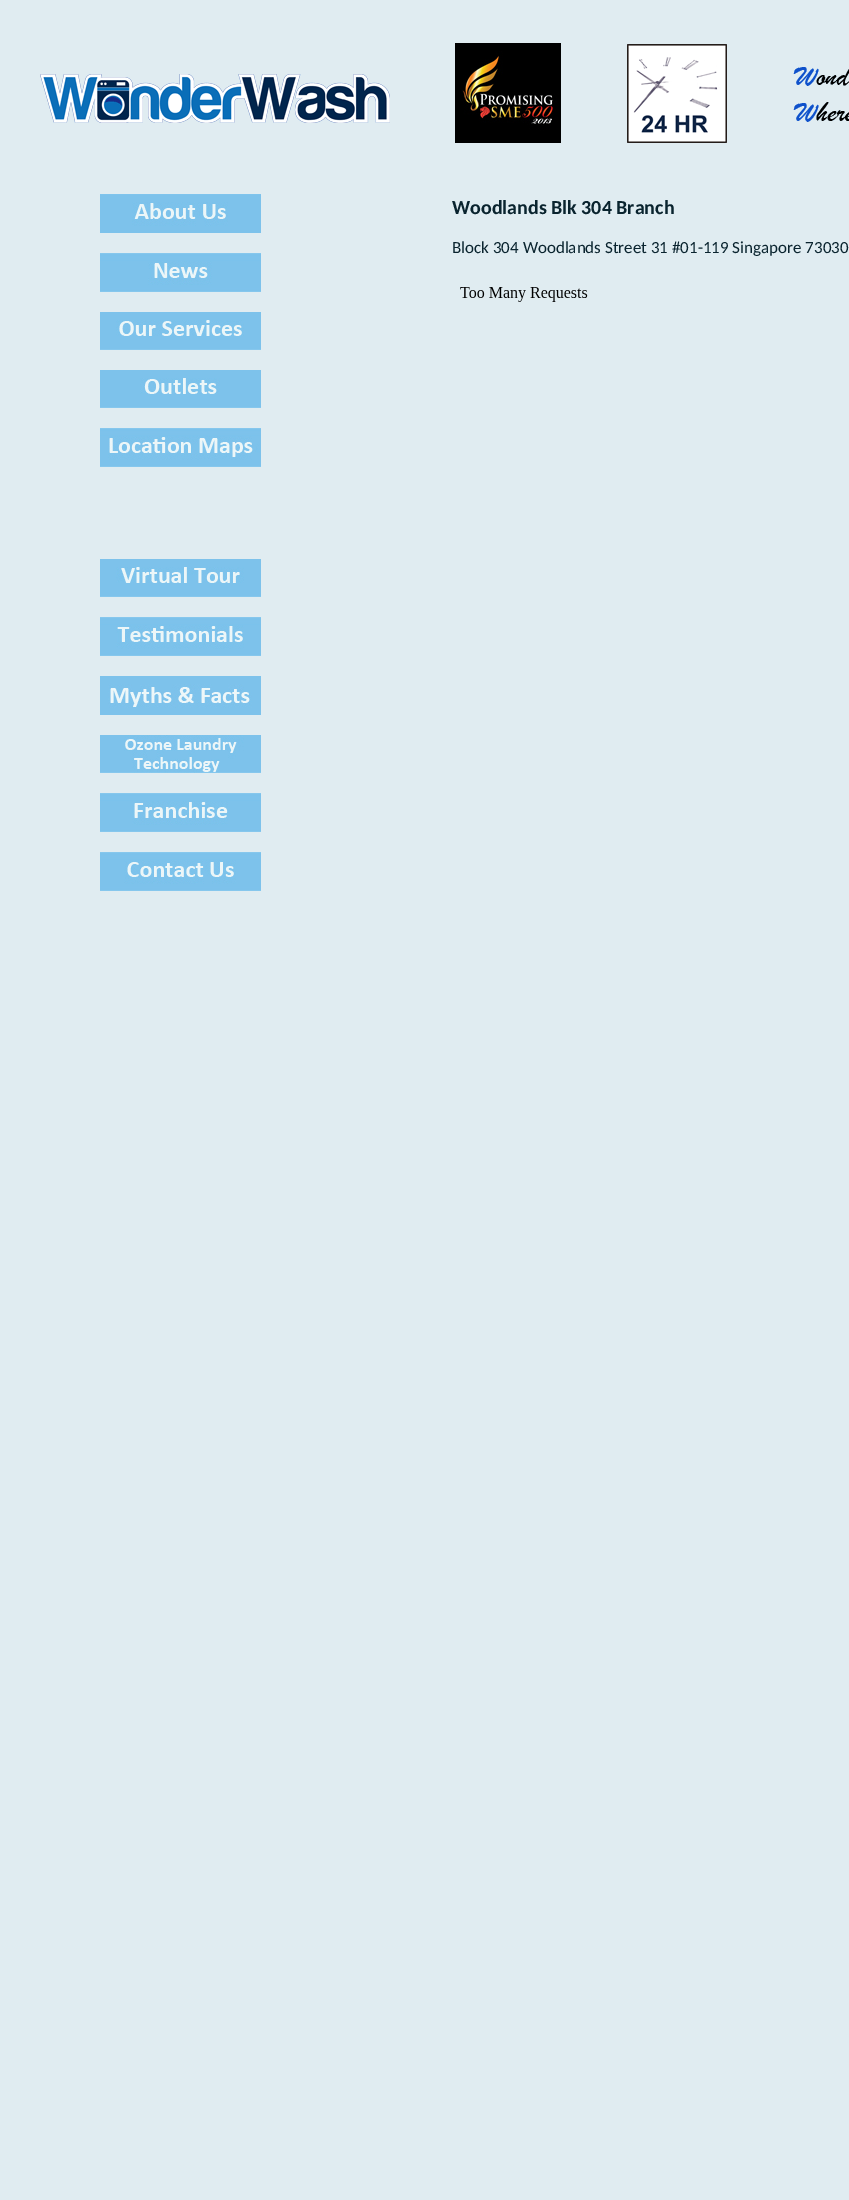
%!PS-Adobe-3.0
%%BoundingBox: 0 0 849 2200
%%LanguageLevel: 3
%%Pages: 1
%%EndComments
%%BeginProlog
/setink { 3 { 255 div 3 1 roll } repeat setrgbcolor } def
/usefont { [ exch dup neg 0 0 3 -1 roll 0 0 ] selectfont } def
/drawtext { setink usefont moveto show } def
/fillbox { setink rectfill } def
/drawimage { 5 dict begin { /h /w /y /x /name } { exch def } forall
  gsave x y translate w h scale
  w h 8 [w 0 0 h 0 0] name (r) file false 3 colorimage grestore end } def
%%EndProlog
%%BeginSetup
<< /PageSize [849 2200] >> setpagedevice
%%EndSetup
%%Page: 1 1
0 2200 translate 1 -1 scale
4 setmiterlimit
0 0 849 2200 224 236 241 fillbox
(assets/img1.rgb) 40 74 350 49 drawimage
(assets/img2.rgb) 100 194 161 39 drawimage
(assets/img3.rgb) 100 253 161 39 drawimage
(assets/img4.rgb) 100 312 161 38 drawimage
(assets/img5.rgb) 100 370 161 38 drawimage
(assets/img6.rgb) 100 428 161 39 drawimage
(assets/img7.rgb) 100 559 161 38 drawimage
(assets/img8.rgb) 100 617 161 39 drawimage
(assets/img9.rgb) 100 676 161 39 drawimage
(assets/img10.rgb) 100 735 161 38 drawimage
(assets/img11.rgb) 100 793 161 39 drawimage
(assets/img12.rgb) 100 852 161 39 drawimage
(assets/img13.rgb) 455 43 106 100 drawimage
(assets/img14.rgb) 627 44 100 99 drawimage
(assets/img15.rgb) 793 67 56 55 drawimage
(Woodlands Blk 304 Branch) 452 214 /Carlito-Bold 20 10 36 47 drawtext
(Block 304 Woodlands Street 31 #01-119 Singapore 73030) 452 253 /Carlito-Regular 17 10 36 47 drawtext
(assets/img16.rgb) 460 287 128 15 drawimage
showpage
%%EOF
